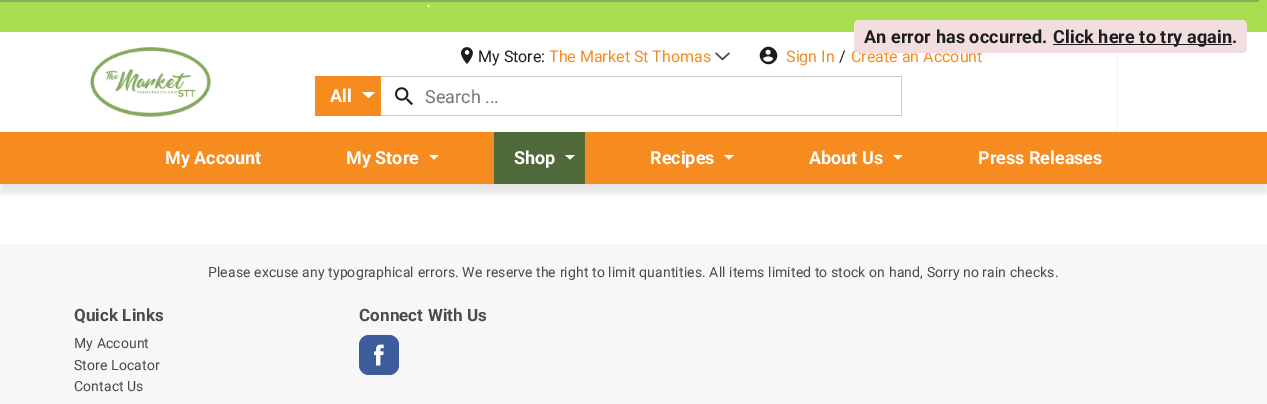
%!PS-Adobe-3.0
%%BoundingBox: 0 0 1267 404
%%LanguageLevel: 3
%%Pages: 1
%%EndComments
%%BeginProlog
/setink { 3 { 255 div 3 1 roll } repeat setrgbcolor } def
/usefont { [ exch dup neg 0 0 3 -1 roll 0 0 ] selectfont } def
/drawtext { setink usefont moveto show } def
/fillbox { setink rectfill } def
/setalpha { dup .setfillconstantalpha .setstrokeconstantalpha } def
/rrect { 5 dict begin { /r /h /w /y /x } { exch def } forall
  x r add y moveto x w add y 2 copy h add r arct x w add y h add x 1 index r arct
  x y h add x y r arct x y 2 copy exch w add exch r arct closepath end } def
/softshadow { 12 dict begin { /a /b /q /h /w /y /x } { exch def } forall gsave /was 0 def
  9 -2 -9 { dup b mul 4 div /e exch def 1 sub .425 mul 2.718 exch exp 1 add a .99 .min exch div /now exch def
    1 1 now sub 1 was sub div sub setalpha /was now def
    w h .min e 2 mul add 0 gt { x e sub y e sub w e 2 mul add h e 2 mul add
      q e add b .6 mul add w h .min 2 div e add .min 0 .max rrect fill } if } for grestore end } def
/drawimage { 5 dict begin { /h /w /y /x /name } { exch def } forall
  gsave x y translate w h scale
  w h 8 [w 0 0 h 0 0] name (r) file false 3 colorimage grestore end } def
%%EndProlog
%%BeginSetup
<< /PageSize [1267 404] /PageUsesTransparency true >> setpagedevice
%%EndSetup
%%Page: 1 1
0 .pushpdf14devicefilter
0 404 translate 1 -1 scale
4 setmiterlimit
0 0 1267 404 255 255 255 fillbox
0 0 1267 32 167 221 79 fillbox
/Roboto-Regular 20 usefont
255 255 255 setink
426 7 moveto 0.1 0 (.) ashow
(assets/img1.rgb) 90 47 121 70 drawimage
(assets/img2.rgb) 461 47 12 17 drawimage
(assets/img3.rgb) 465 50 5 5 drawimage
(My Store:) 478 62 /Roboto-Regular 16 29 29 31 drawtext
(The Market St Thomas) 549 62 /Roboto-Regular 16 246 139 31 drawtext
(assets/img4.rgb) 715 52 15 9 drawimage
29 29 31 setink
774.5 61.5 moveto 766.5 69.5 754.5 57.5 762.5 49.5 curveto 770.5 41.5 782.5 53.5 774.5 61.5 curveto closepath fill
(assets/img5.rgb) 763 49 11 13 drawimage
(Sign In) 786 62 /Roboto-Regular 16 246 139 31 drawtext
(/) 839 62 /Roboto-Regular 16 29 29 31 drawtext
(Create an Account) 851 62 /Roboto-Regular 16 246 139 31 drawtext
315 76 66 40 246 139 31 fillbox
(All) 330 102 /Roboto-Bold 18 255 255 255 drawtext
362 92 moveto 375 92 lineto 368.5 98 lineto closepath fill
(assets/img6.rgb) 395 87 18 19 drawimage
381 76 521 1 204 204 204 fillbox
901 76 1 40 204 204 204 fillbox
381 115 521 1 204 204 204 fillbox
(Search ...) 425 103 /Roboto-Regular 18 117 117 117 drawtext
1116 53 2 79 247 247 247 fillbox
0 132 1267 52 246 139 31 fillbox
gsave
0 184 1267 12 rectclip
0 0 0 setink
0 141 1267 52 0 3.5 0.1 softshadow
grestore
(My Account) 165 164 /Roboto-Bold 18 255 255 255 drawtext
(My Store) 346 164 /Roboto-Bold 18 255 255 255 drawtext
429 155 moveto 439 155 lineto 434 159.5 lineto closepath fill
494 132 91 52 80 105 58 fillbox
(Shop) 514 164 /Roboto-Bold 18 255 255 255 drawtext
565 155 moveto 575 155 lineto 570 159.5 lineto closepath fill
(Recipes) 650 164 /Roboto-Bold 18 255 255 255 drawtext
724 155 moveto 734 155 lineto 729 159.5 lineto closepath fill
(About Us) 809 164 /Roboto-Bold 18 255 255 255 drawtext
893 155 moveto 903 155 lineto 898 159.5 lineto closepath fill
(Press Releases) 978 164 /Roboto-Bold 18 255 255 255 drawtext
0 244 1267 160 247 247 247 fillbox
/Roboto-Regular 14 usefont
74 74 74 setink
208 277 moveto 0.1 0 (Please excuse any typographical errors. We reserve the right to limit quantities. All items limited to stock on hand, Sorry no rain checks.) ashow
/Roboto-Bold 17 usefont
74 321 moveto 0.1 0 (Quick Links) ashow
/Roboto-Regular 14 usefont
74 348 moveto 0.1 0 (My Account) ashow
74 370 moveto 0.1 0 (Store Locator) ashow
74 391 moveto 0.1 0 (Contact Us) ashow
/Roboto-Bold 17 usefont
359 321 moveto 0.1 0 (Connect With Us) ashow
60 92 156 setink
359 335 40 40 10 rrect fill
(assets/img7.rgb) 374 344 10 22 drawimage
0 0 1259 2 133 174 96 fillbox
242 222 222 setink
854 20 393 33 5 rrect fill
/Roboto-Bold 18 usefont
29 29 31 setink
864 43 moveto 0.1 0 (An error has occurred.) ashow
1053 44 179 1 29 29 31 fillbox
1053 43 moveto 0.1 0 (Click here to try again.) ashow
.poppdf14devicefilter showpage
%%EOF
